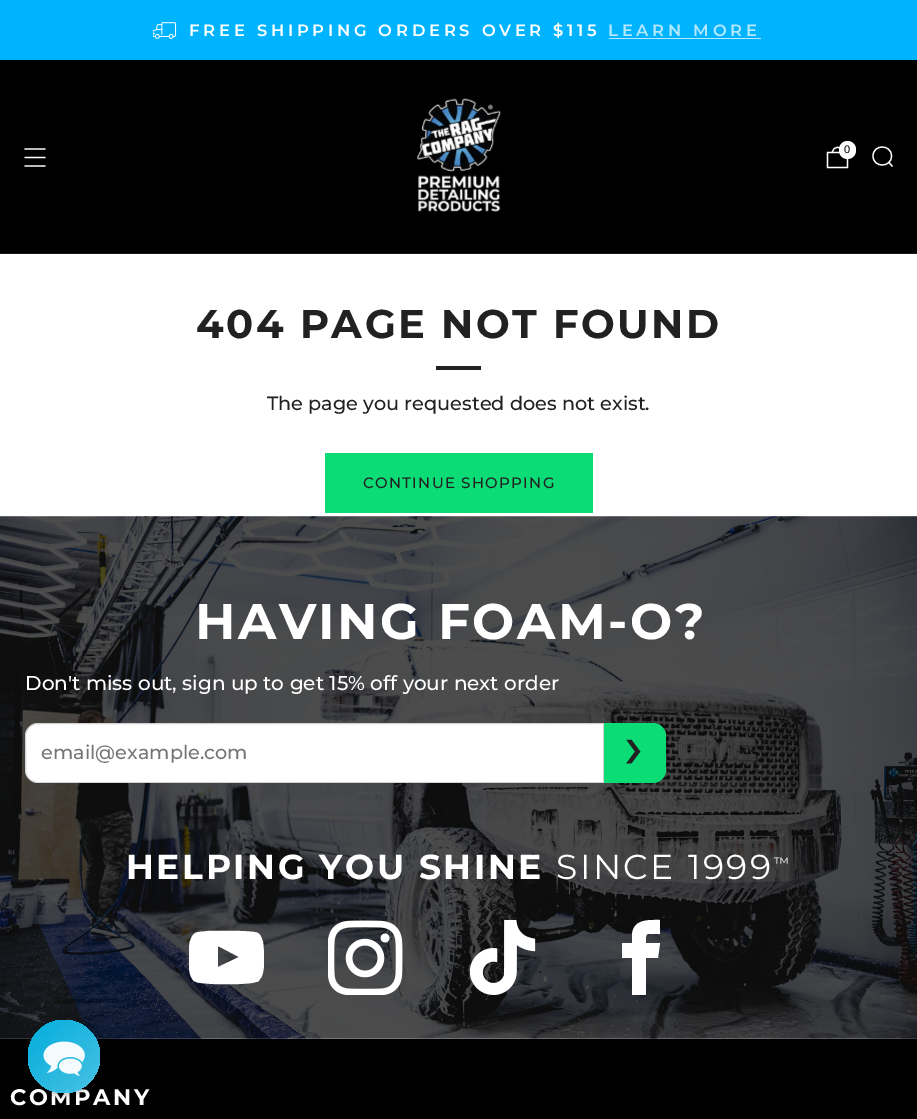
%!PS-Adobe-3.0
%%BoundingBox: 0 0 917 1119
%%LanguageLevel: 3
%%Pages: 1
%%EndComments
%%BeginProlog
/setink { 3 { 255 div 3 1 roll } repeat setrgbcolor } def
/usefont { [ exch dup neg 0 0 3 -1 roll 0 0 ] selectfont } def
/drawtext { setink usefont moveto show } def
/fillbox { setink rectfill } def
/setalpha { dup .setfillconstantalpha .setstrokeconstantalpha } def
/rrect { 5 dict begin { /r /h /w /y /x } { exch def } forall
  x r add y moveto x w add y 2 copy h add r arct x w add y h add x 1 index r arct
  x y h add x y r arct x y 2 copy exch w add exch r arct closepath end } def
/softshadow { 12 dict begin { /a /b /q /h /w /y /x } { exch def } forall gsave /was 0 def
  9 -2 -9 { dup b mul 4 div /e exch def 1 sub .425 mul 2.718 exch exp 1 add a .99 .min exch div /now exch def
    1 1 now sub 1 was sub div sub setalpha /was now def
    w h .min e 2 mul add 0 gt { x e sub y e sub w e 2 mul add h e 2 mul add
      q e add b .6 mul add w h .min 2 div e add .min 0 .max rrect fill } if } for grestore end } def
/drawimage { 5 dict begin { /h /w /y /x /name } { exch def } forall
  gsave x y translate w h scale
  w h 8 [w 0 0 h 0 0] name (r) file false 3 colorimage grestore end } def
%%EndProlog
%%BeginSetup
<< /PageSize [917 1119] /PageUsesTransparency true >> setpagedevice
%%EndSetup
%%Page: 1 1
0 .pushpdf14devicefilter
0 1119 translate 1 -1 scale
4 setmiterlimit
0 0 917 1119 255 255 255 fillbox
0 0 917 60 0 179 255 fillbox
(assets/img1.rgb) 153 22 24 17 drawimage
/Montserrat-SemiBold 16.35 usefont
255 255 255 setink
189 36 moveto 3.75 0 (FREE SHIPPING ORDERS OVER $115) ashow
179 232 255 setink
608 36 moveto 3.75 0 (LEARN MORE) ashow
609 38 152 1 179 232 255 fillbox
0 60 917 193 0 0 0 fillbox
0 253 917 1 26 26 26 fillbox
255 255 255 setink
1.2 setlinewidth
24.5 149 moveto 45.5 149 lineto 24.5 157.5 moveto 45.5 157.5 lineto 24.5 166 moveto 45.5 166 lineto stroke
(assets/img2.rgb) 417 98 84 114 drawimage
842.5 152.5 moveto 842.5 145.5 832.5 145.5 832.5 152.5 curveto 827.5 152.5 moveto 847.5 152.5 lineto 847.5 167.5 lineto 827.5 167.5 lineto closepath stroke
839 141 17 18 8.5 rrect fill
(0) 844 153 /LiberationSans-Regular 11 0 0 0 drawtext
255 255 255 setink
889 162.5 moveto 892.5 166.5 lineto 891.5 156 moveto 891.5 168 873 168 873 156 curveto 873 144 891.5 144 891.5 156 curveto closepath stroke
/Montserrat-Bold 40 usefont
33 33 33 setink
196 338 moveto 2.5 0 (404 PAGE NOT FOUND) ashow
436 366 45 4 33 33 33 fillbox
(The page you requested does not exist.) 267 410 /Montserrat-Medium 19.25 33 33 33 drawtext
325 453 268 60 11 220 117 fillbox
/Montserrat-Medium 15 usefont
33 33 33 setink
363 488 moveto 1.25 0 (CONTINUE SHOPPING) ashow
(assets/img3.rgb) 0 516 917 523 drawimage
/Montserrat-Bold 50 usefont
255 255 255 setink
195 639 moveto 2.5 0 (HAVING FOAM-O?) ashow
(Don't miss out, sign up to get 15% off your next order) 25 690 /Montserrat-Medium 20 255 255 255 drawtext
38 723 moveto 604 723 lineto 604 783 lineto 38 783 lineto 31 783 25 777 25 770 curveto 25 736 lineto 25 729 31 723 38 723 curveto closepath fill
0.2 setalpha
33 33 33 setink
1 setlinewidth
38 723.5 moveto 603.5 723.5 lineto 603.5 782.5 lineto 38 782.5 lineto 31 782.5 25.5 777 25.5 770 curveto 25.5 736 lineto 25.5 729 31 723.5 38 723.5 curveto closepath stroke
1 setalpha
(email@example.com) 41 759 /Montserrat-Medium 19.25 117 117 117 drawtext
11 220 117 setink
604 723 moveto 653 723 lineto 660 723 666 729 666 736 curveto 666 770 lineto 666 777 660 783 653 783 curveto 604 783 lineto closepath fill
/Montserrat-Medium 62 usefont
33 33 33 setink
624 768 moveto 1.25 0 (›) ashow
/Montserrat-Bold 34.6 usefont
255 255 255 setink
126 879 moveto 2.5 0 (HELPING YOU SHINE) ashow
/Montserrat-Regular 34.6 usefont
556 879 moveto 2.5 0 (SINCE 1999) ashow
/Montserrat-Regular 15 usefont
774 868 moveto 2.5 0 (™) ashow
gsave
189 920 75 75 rectclip
263 942 moveto 262 939 261 935 258 933 curveto 252 930 217 931 207 931 curveto 203 932 197 931 194 934 curveto 188 939 189 951 189 958 curveto 189 964 188 976 194 981 curveto 196 982 lineto 205 985 248 985 256 982 curveto 258 982 259 981 260 979 curveto 266 973 264 950 263 942 curveto closepath 218 967 moveto 218 946 lineto 239 957 lineto closepath fill
grestore
(assets/img4.rgb) 328 920 75 75 drawimage
(assets/img5.rgb) 469 920 67 75 drawimage
648 934 moveto 660 934 lineto 660 920 lineto 648 920 634 919 632 934 curveto 632 943 lineto 622 943 lineto 622 958 lineto 632 958 lineto 632 995 lineto 646 995 lineto 646 958 lineto 658 958 lineto 660 943 lineto 646 943 lineto 646 941 645 934 648 934 curveto closepath fill
0 1039 917 80 0 0 0 fillbox
/Montserrat-Bold 22.5 usefont
255 255 255 setink
10 1105 moveto 2.5 0 (COMPANY) ashow
gsave
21 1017 moveto 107 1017 lineto 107 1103 lineto 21 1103 lineto closepath 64 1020 moveto 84 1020 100 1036 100 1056 curveto 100 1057 lineto 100 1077 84 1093 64 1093 curveto 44 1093 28 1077 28 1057 curveto 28 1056 lineto 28 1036 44 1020 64 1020 curveto closepath eoclip newpath
0 0 0 setink
28 1024 72 72 36 2 0.19 softshadow
grestore
0.95 setalpha
gsave 28 1020 72 73 36 rrect clip newpath
<< /ShadingType 2 /ColorSpace /DeviceRGB /Coords [27 1020 100 1093] /Extend [true true] /Function << /FunctionType 2 /Domain [0 1] /C0 [0 0.71 0.902] /C1 [0.302 0.796 0.933] /N 1 >> >> shfill grestore
1 setalpha
(assets/img6.rgb) 43 1041 42 35 drawimage
.poppdf14devicefilter showpage
%%EOF
